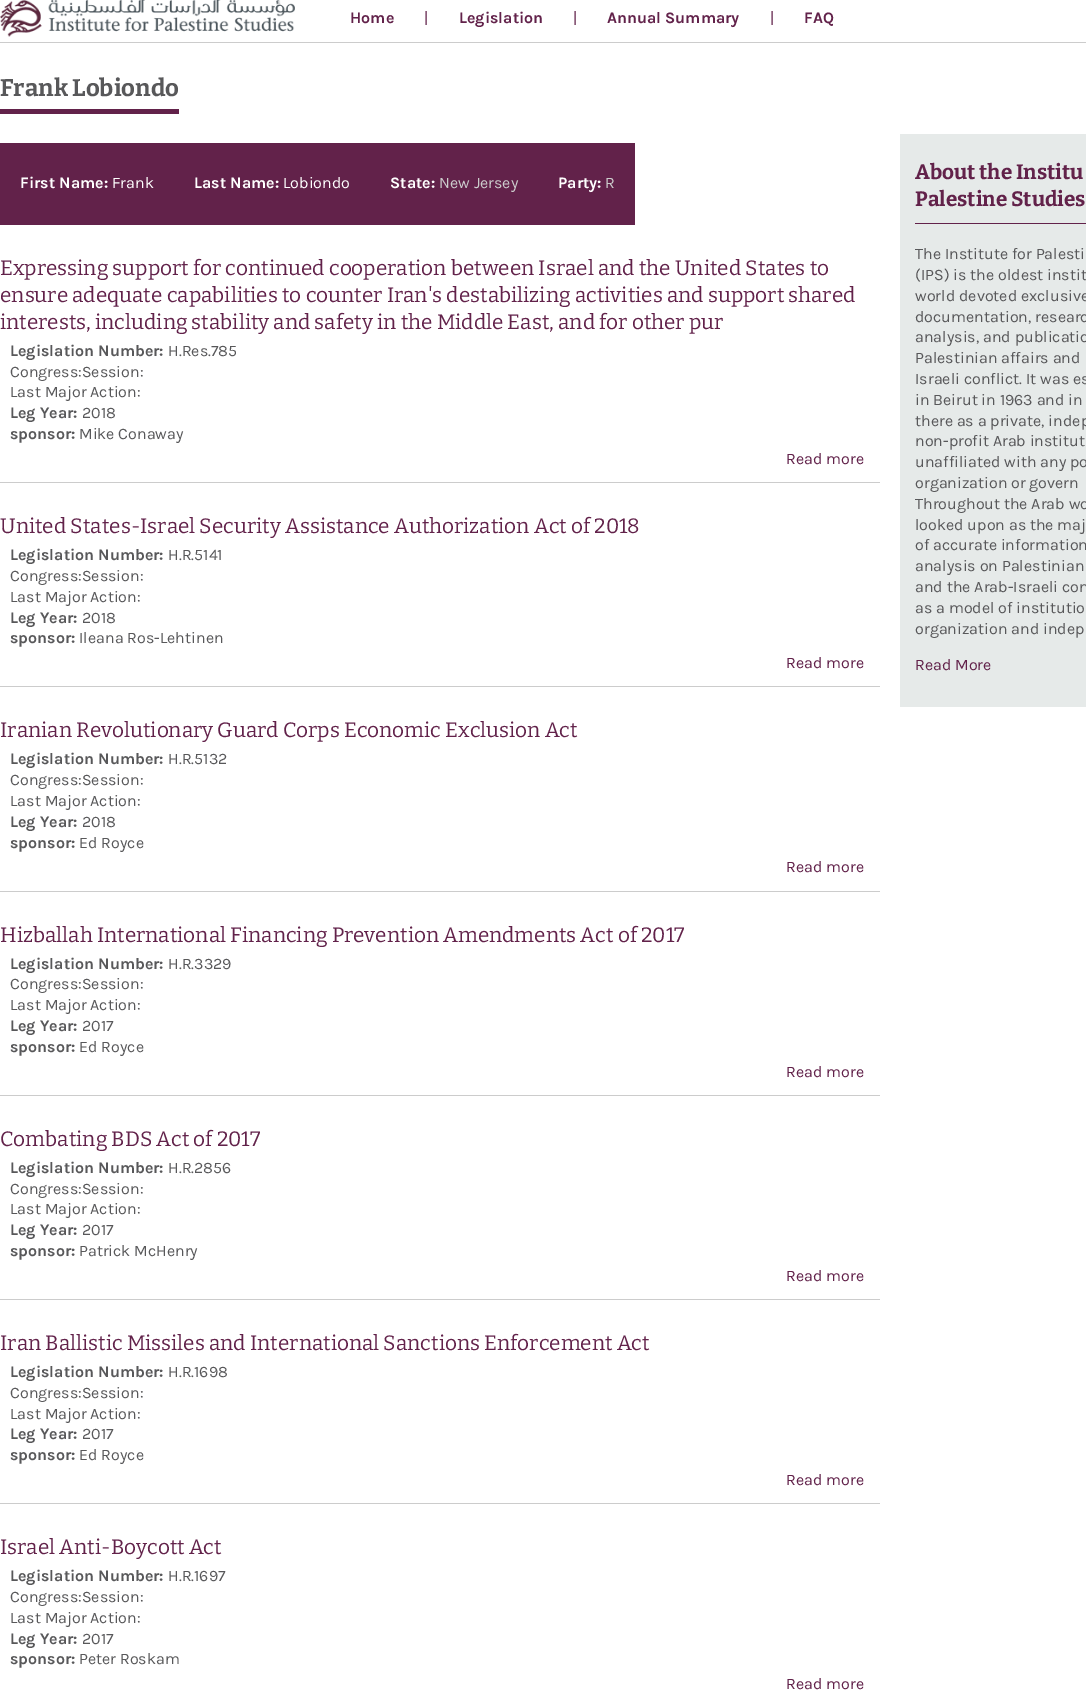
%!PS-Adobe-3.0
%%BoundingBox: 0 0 1086 1697
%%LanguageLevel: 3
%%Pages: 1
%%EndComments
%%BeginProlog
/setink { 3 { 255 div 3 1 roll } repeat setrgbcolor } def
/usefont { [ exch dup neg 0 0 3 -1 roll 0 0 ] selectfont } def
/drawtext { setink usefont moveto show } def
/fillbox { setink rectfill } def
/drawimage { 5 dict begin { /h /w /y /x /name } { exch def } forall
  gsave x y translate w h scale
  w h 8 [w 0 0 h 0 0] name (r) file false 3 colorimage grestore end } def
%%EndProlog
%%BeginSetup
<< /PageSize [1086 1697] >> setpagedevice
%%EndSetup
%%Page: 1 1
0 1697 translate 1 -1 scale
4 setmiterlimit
0 0 1086 1697 255 255 255 fillbox
0 42 1086 1 204 204 204 fillbox
(assets/img1.rgb) 0 0 295 37 drawimage
(Home) 350 23 /Karla-Bold 16 98 34 74 drawtext
(|) 424 23 /Karla-Regular 16 98 34 74 drawtext
(Legislation) 459 23 /Karla-Bold 16 98 34 74 drawtext
(|) 573 23 /Karla-Regular 16 98 34 74 drawtext
(Annual Summary) 607 23 /Karla-Bold 16 98 34 74 drawtext
(|) 770 23 /Karla-Regular 16 98 34 74 drawtext
(FAQ) 804 23 /Karla-Bold 16 98 34 74 drawtext
0 109 179 5 98 34 74 fillbox
(Frank Lobiondo) 0 96 /Bitter-Bold 24 88 88 90 drawtext
0 143 635 82 98 34 74 fillbox
(First Name:) 20 188 /Karla-Bold 16 255 255 255 drawtext
(Frank) 112 188 /Karla-Regular 16 255 255 255 drawtext
(Last Name:) 194 188 /Karla-Bold 16 255 255 255 drawtext
(Lobiondo) 283 188 /Karla-Regular 16 255 255 255 drawtext
(State:) 390 188 /Karla-Bold 16 255 255 255 drawtext
(New Jersey) 439 188 /Karla-Regular 16 204 204 204 drawtext
(Party:) 558 188 /Karla-Bold 16 255 255 255 drawtext
(R) 605 188 /Karla-Regular 16 204 204 204 drawtext
(Expressing support for continued cooperation between Israel and the United States to) 0 275 /Bitter-Regular 20.8 98 34 74 drawtext
(ensure adequate capabilities to counter Iran's destabilizing activities and support shared) 0 302 /Bitter-Regular 20.8 98 34 74 drawtext
(interests, including stability and safety in the Middle East, and for other pur) 0 329 /Bitter-Regular 20.8 98 34 74 drawtext
(Legislation Number:) 10 356 /Karla-Bold 16 88 88 90 drawtext
(H.Res.785) 168 356 /Karla-Regular 16 88 88 90 drawtext
(Congress:Session:) 10 377 /Karla-Regular 16 88 88 90 drawtext
(Last Major Action:) 10 397 /Karla-Regular 16 88 88 90 drawtext
(Leg Year:) 10 418 /Karla-Bold 16 88 88 90 drawtext
(2018) 82 418 /Karla-Regular 16 88 88 90 drawtext
(sponsor:) 10 439 /Karla-Bold 16 88 88 90 drawtext
(Mike Conaway) 79 439 /Karla-Regular 16 88 88 90 drawtext
0 482 880 1 204 204 204 fillbox
(Read more) 786 464 /Karla-Regular 16 98 34 74 drawtext
(United States-Israel Security Assistance Authorization Act of 2018) 0 533 /Bitter-Regular 20.8 98 34 74 drawtext
(Legislation Number:) 10 560 /Karla-Bold 16 88 88 90 drawtext
(H.R.5141) 168 560 /Karla-Regular 16 88 88 90 drawtext
(Congress:Session:) 10 581 /Karla-Regular 16 88 88 90 drawtext
(Last Major Action:) 10 602 /Karla-Regular 16 88 88 90 drawtext
(Leg Year:) 10 623 /Karla-Bold 16 88 88 90 drawtext
(2018) 82 623 /Karla-Regular 16 88 88 90 drawtext
(sponsor:) 10 643 /Karla-Bold 16 88 88 90 drawtext
(Ileana Ros-Lehtinen) 79 643 /Karla-Regular 16 88 88 90 drawtext
0 686 880 1 204 204 204 fillbox
(Read more) 786 668 /Karla-Regular 16 98 34 74 drawtext
(Iranian Revolutionary Guard Corps Economic Exclusion Act) 0 737 /Bitter-Regular 20.8 98 34 74 drawtext
(Legislation Number:) 10 764 /Karla-Bold 16 88 88 90 drawtext
(H.R.5132) 168 764 /Karla-Regular 16 88 88 90 drawtext
(Congress:Session:) 10 785 /Karla-Regular 16 88 88 90 drawtext
(Last Major Action:) 10 806 /Karla-Regular 16 88 88 90 drawtext
(Leg Year:) 10 827 /Karla-Bold 16 88 88 90 drawtext
(2018) 82 827 /Karla-Regular 16 88 88 90 drawtext
(sponsor:) 10 848 /Karla-Bold 16 88 88 90 drawtext
(Ed Royce) 79 848 /Karla-Regular 16 88 88 90 drawtext
0 891 880 1 204 204 204 fillbox
(Read more) 786 872 /Karla-Regular 16 98 34 74 drawtext
(Hizballah International Financing Prevention Amendments Act of 2017) 0 942 /Bitter-Regular 20.8 98 34 74 drawtext
(Legislation Number:) 10 969 /Karla-Bold 16 88 88 90 drawtext
(H.R.3329) 168 969 /Karla-Regular 16 88 88 90 drawtext
(Congress:Session:) 10 989 /Karla-Regular 16 88 88 90 drawtext
(Last Major Action:) 10 1010 /Karla-Regular 16 88 88 90 drawtext
(Leg Year:) 10 1031 /Karla-Bold 16 88 88 90 drawtext
(2017) 82 1031 /Karla-Regular 16 88 88 90 drawtext
(sponsor:) 10 1052 /Karla-Bold 16 88 88 90 drawtext
(Ed Royce) 79 1052 /Karla-Regular 16 88 88 90 drawtext
0 1095 880 1 204 204 204 fillbox
(Read more) 786 1077 /Karla-Regular 16 98 34 74 drawtext
(Combating BDS Act of 2017) 0 1146 /Bitter-Regular 20.8 98 34 74 drawtext
(Legislation Number:) 10 1173 /Karla-Bold 16 88 88 90 drawtext
(H.R.2856) 168 1173 /Karla-Regular 16 88 88 90 drawtext
(Congress:Session:) 10 1194 /Karla-Regular 16 88 88 90 drawtext
(Last Major Action:) 10 1214 /Karla-Regular 16 88 88 90 drawtext
(Leg Year:) 10 1235 /Karla-Bold 16 88 88 90 drawtext
(2017) 82 1235 /Karla-Regular 16 88 88 90 drawtext
(sponsor:) 10 1256 /Karla-Bold 16 88 88 90 drawtext
(Patrick McHenry) 79 1256 /Karla-Regular 16 88 88 90 drawtext
0 1299 880 1 204 204 204 fillbox
(Read more) 786 1281 /Karla-Regular 16 98 34 74 drawtext
(Iran Ballistic Missiles and International Sanctions Enforcement Act) 0 1350 /Bitter-Regular 20.8 98 34 74 drawtext
(Legislation Number:) 10 1377 /Karla-Bold 16 88 88 90 drawtext
(H.R.1698) 168 1377 /Karla-Regular 16 88 88 90 drawtext
(Congress:Session:) 10 1398 /Karla-Regular 16 88 88 90 drawtext
(Last Major Action:) 10 1419 /Karla-Regular 16 88 88 90 drawtext
(Leg Year:) 10 1439 /Karla-Bold 16 88 88 90 drawtext
(2017) 82 1439 /Karla-Regular 16 88 88 90 drawtext
(sponsor:) 10 1460 /Karla-Bold 16 88 88 90 drawtext
(Ed Royce) 79 1460 /Karla-Regular 16 88 88 90 drawtext
0 1503 880 1 204 204 204 fillbox
(Read more) 786 1485 /Karla-Regular 16 98 34 74 drawtext
(Israel Anti-Boycott Act) 0 1554 /Bitter-Regular 20.8 98 34 74 drawtext
(Legislation Number:) 10 1581 /Karla-Bold 16 88 88 90 drawtext
(H.R.1697) 168 1581 /Karla-Regular 16 88 88 90 drawtext
(Congress:Session:) 10 1602 /Karla-Regular 16 88 88 90 drawtext
(Last Major Action:) 10 1623 /Karla-Regular 16 88 88 90 drawtext
(Leg Year:) 10 1644 /Karla-Bold 16 88 88 90 drawtext
(2017) 82 1644 /Karla-Regular 16 88 88 90 drawtext
(sponsor:) 10 1664 /Karla-Bold 16 88 88 90 drawtext
(Peter Roskam) 79 1664 /Karla-Regular 16 88 88 90 drawtext
(Read more) 786 1689 /Karla-Regular 16 98 34 74 drawtext
900 134 186 573 230 234 233 fillbox
915 223 171 1 98 34 74 fillbox
(About the Institu) 915 179 /Bitter-Bold 20.8 98 34 74 drawtext
(Palestine Studies) 915 206 /Bitter-Bold 20.8 98 34 74 drawtext
(The Institute for Palesti) 915 259 /Karla-Regular 16 88 88 90 drawtext
(\(IPS\) is the oldest instit) 915 280 /Karla-Regular 16 88 88 90 drawtext
(world devoted exclusive) 915 301 /Karla-Regular 16 88 88 90 drawtext
(documentation, researc) 915 322 /Karla-Regular 16 88 88 90 drawtext
(analysis, and publicatio) 915 342 /Karla-Regular 16 88 88 90 drawtext
(Palestinian affairs and) 915 363 /Karla-Regular 16 88 88 90 drawtext
(Israeli conflict. It was es) 915 384 /Karla-Regular 16 88 88 90 drawtext
(in Beirut in 1963 and in) 915 405 /Karla-Regular 16 88 88 90 drawtext
(there as a private, indep) 915 426 /Karla-Regular 16 88 88 90 drawtext
(non-profit Arab institut) 915 446 /Karla-Regular 16 88 88 90 drawtext
(unaffiliated with any po) 915 467 /Karla-Regular 16 88 88 90 drawtext
(organization or govern) 915 488 /Karla-Regular 16 88 88 90 drawtext
(Throughout the Arab wo) 915 509 /Karla-Regular 16 88 88 90 drawtext
(looked upon as the maj) 915 530 /Karla-Regular 16 88 88 90 drawtext
(of accurate information) 915 550 /Karla-Regular 16 88 88 90 drawtext
(analysis on Palestinian) 915 571 /Karla-Regular 16 88 88 90 drawtext
(and the Arab-Israeli con) 915 592 /Karla-Regular 16 88 88 90 drawtext
(as a model of institutio) 915 613 /Karla-Regular 16 88 88 90 drawtext
(organization and indep) 915 634 /Karla-Regular 16 88 88 90 drawtext
(Read More) 915 670 /Karla-Regular 16 98 34 74 drawtext
showpage
%%EOF
